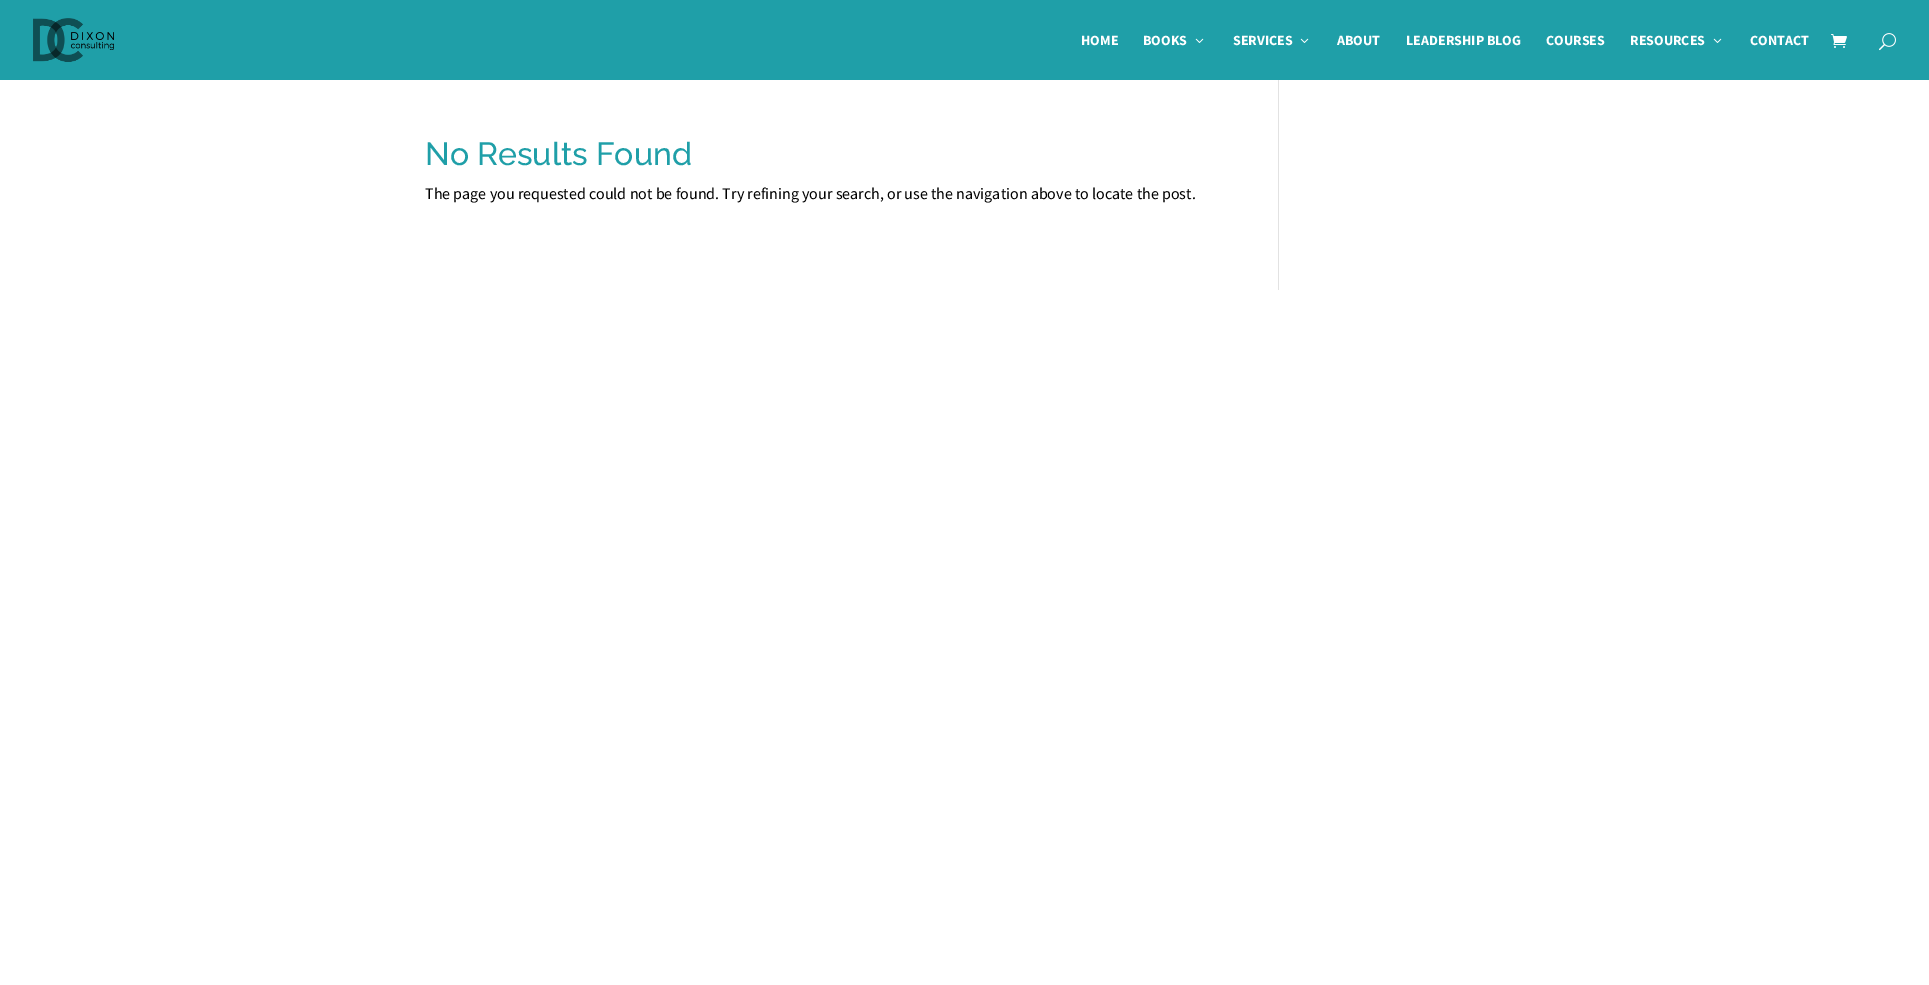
%!PS-Adobe-3.0
%%BoundingBox: 0 0 1929 985
%%LanguageLevel: 3
%%Pages: 1
%%EndComments
%%BeginProlog
/setink { 3 { 255 div 3 1 roll } repeat setrgbcolor } def
/usefont { [ exch dup neg 0 0 3 -1 roll 0 0 ] selectfont } def
/drawtext { setink usefont moveto show } def
/fillbox { setink rectfill } def
/drawimage { 5 dict begin { /h /w /y /x /name } { exch def } forall
  gsave x y translate w h scale
  w h 8 [w 0 0 h 0 0] name (r) file false 3 colorimage grestore end } def
%%EndProlog
%%BeginSetup
<< /PageSize [1929 985] >> setpagedevice
%%EndSetup
%%Page: 1 1
0 985 translate 1 -1 scale
4 setmiterlimit
0 0 1929 985 255 255 255 fillbox
0 0 1929 80 31 159 168 fillbox
(assets/img1.rgb) 33 18 81 44 drawimage
(HOME) 1081 45 /SourceSansPro-Bold 14 255 255 255 drawtext
(BOOKS) 1143 45 /SourceSansPro-Bold 14 255 255 255 drawtext
(assets/img2.rgb) 1195 38 9 5 drawimage
(SERVICES) 1233 45 /SourceSansPro-Bold 14 255 255 255 drawtext
(assets/img2.rgb) 1300 38 9 5 drawimage
(ABOUT) 1337 45 /SourceSansPro-Bold 14 255 255 255 drawtext
(LEADERSHIP BLOG) 1406 45 /SourceSansPro-Bold 14 255 255 255 drawtext
(COURSES) 1546 45 /SourceSansPro-Bold 14 255 255 255 drawtext
(RESOURCES) 1630 45 /SourceSansPro-Bold 14 255 255 255 drawtext
(assets/img2.rgb) 1713 38 9 5 drawimage
(CONTACT) 1750 45 /SourceSansPro-Bold 14 255 255 255 drawtext
(assets/img3.rgb) 1831 34 16 14 drawimage
(assets/img4.rgb) 1879 33 17 18 drawimage
(No Results Found) 425 165 /Raleway-Medium 32 31 159 168 drawtext
(The page you requested could not be found. Try refining your search, or use the navigation above to locate the post.) 425 199 /SourceSansPro-Regular 16 0 0 0 drawtext
1278 80 1 210 226 226 226 fillbox
showpage
%%EOF
